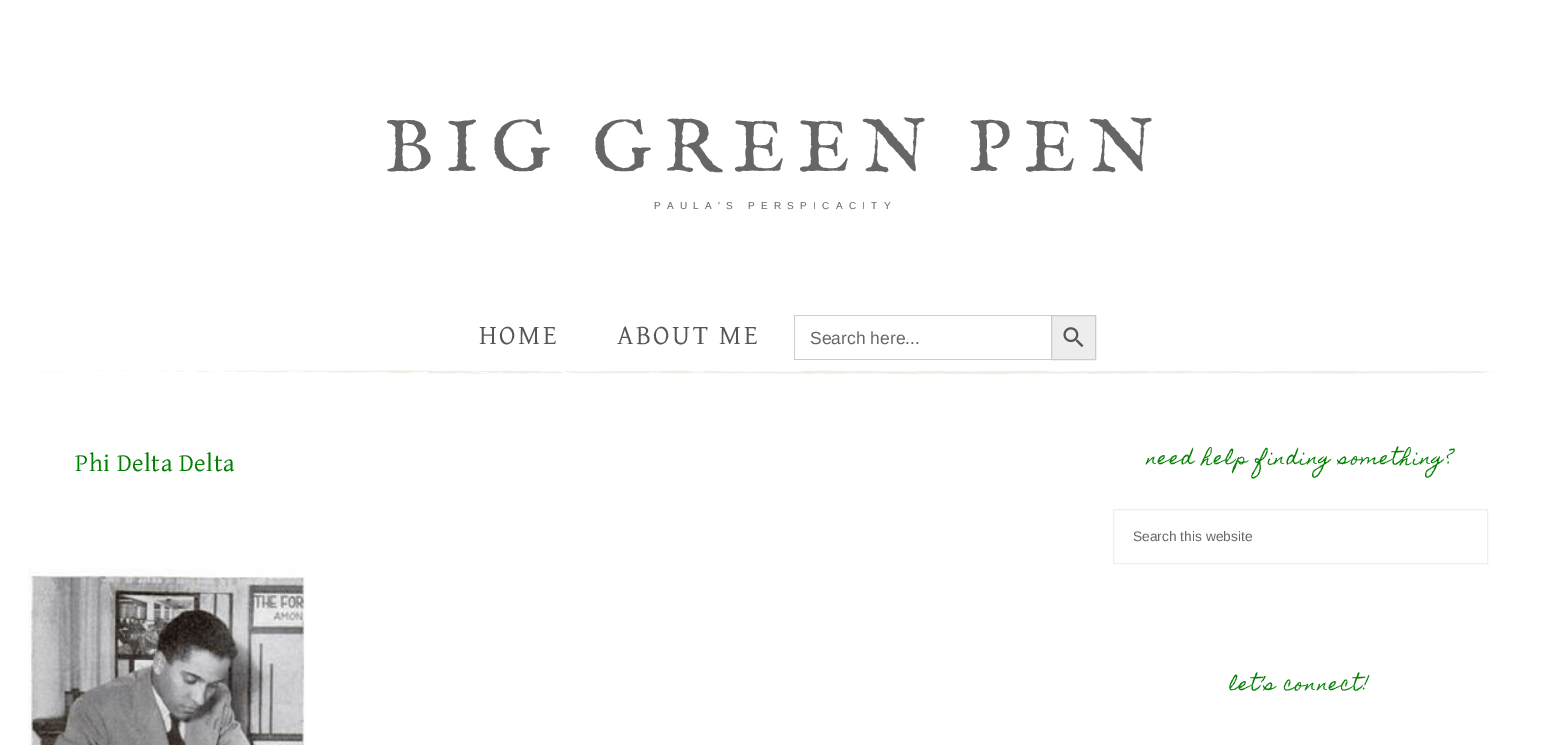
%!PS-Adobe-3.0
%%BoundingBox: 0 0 1550 745
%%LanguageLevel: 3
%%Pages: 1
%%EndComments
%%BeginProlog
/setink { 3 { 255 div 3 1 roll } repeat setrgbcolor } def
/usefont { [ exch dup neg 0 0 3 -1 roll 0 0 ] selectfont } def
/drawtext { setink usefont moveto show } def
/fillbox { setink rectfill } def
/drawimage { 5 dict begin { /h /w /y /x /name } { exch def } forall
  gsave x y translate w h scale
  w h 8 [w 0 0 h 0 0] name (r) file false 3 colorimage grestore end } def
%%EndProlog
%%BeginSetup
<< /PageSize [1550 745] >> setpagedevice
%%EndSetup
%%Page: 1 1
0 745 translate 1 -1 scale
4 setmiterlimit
0 0 1550 745 255 255 255 fillbox
/IMFELLEnglish-Regular 75 usefont
102 102 102 setink
384 171 moveto 12.5 0 (BIG GREEN PEN) ashow
/Arimo-Regular 10 usefont
654 209 moveto 6.25 0 (PAULA'S PERSPICACITY) ashow
(assets/img1.rgb) 43 370 1455 5 drawimage
/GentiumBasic-Regular 27.5 usefont
85 85 85 setink
479 344 moveto 2.5 0 (HOME) ashow
617 344 moveto 2.5 0 (ABOUT ME) ashow
794 315 257 1 204 204 204 fillbox
794 359 257 1 204 204 204 fillbox
794 315 1 45 204 204 204 fillbox
(Search here...) 810 344 /LiberationSans-Regular 17.5 102 102 102 drawtext
237 237 237 setink
1051.5 315.5 moveto 1095.5 315.5 lineto 1095.5 359.5 lineto 1051.5 359.5 lineto closepath gsave fill grestore
204 204 204 setink
stroke
(assets/img2.rgb) 1063 327 21 21 drawimage
/GentiumBasic-Regular 25 usefont
0 128 0 setink
75 471 moveto 0.6 0 (Phi Delta Delta) ashow
(assets/img3.rgb) 28 568 277 177 drawimage
/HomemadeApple-Regular 17.5 usefont
1147 464 moveto 1.25 0 (need help finding something?) ashow
238 238 238 setink
1113.5 509.5 374 54 rectstroke
(Search this website) 1133 541 /Arimo-Regular 13.75 102 102 102 drawtext
/HomemadeApple-Regular 17.5 usefont
0 128 0 setink
1229 690 moveto 1.25 0 (let’s connect!) ashow
showpage
%%EOF
